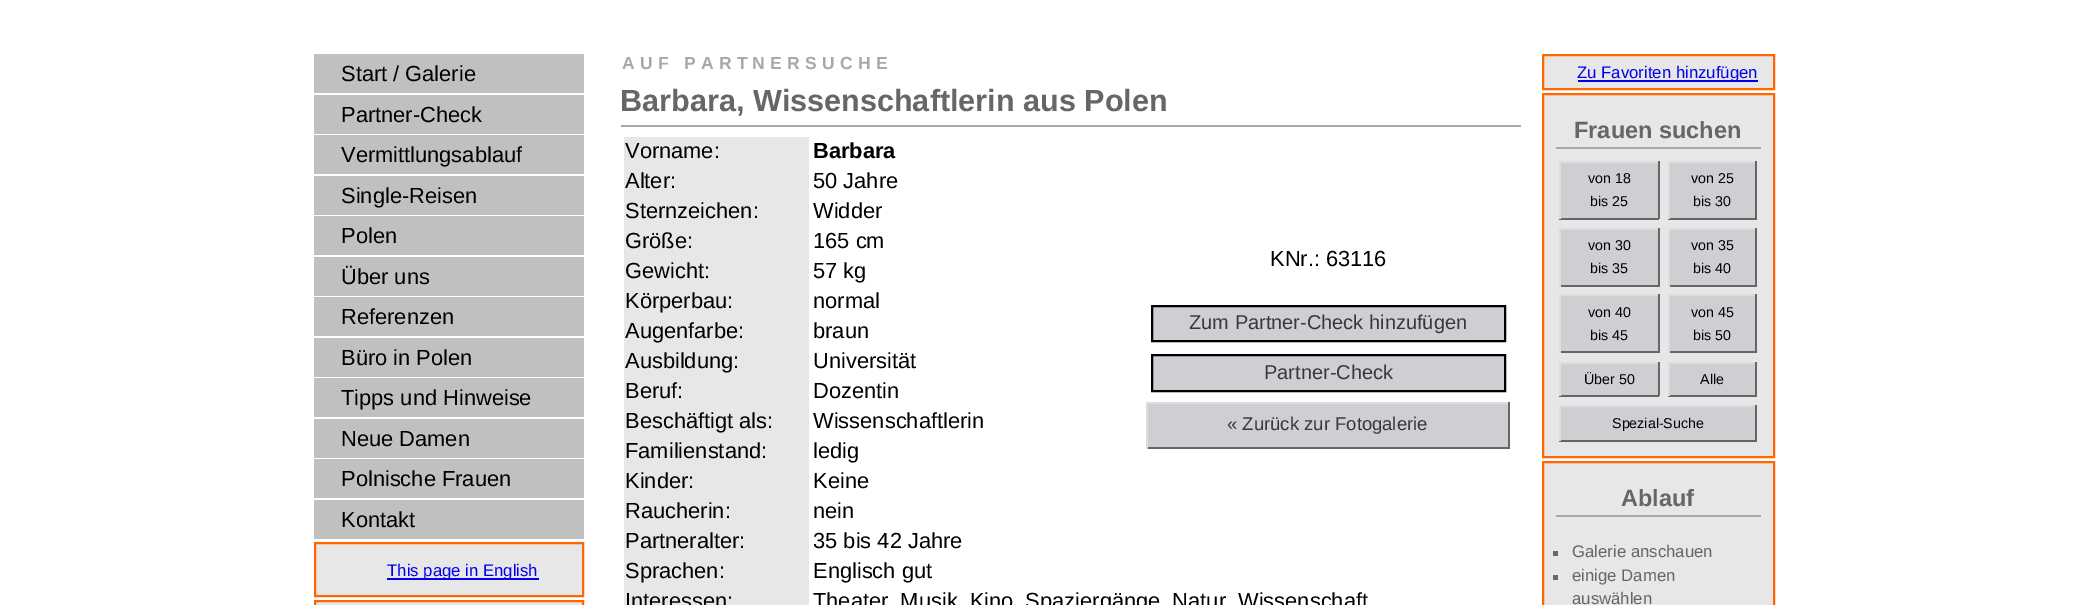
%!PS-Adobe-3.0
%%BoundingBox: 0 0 2095 605
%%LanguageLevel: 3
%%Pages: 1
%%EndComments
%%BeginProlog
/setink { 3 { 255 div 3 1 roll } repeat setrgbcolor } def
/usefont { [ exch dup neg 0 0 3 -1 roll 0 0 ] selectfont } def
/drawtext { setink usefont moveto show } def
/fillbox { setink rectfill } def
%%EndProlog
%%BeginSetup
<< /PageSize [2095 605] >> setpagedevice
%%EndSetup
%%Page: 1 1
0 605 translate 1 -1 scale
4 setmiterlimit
0 0 2095 605 255 255 255 fillbox
314 54 270 39 192 192 192 fillbox
(Start / Galerie) 341 81 /LiberationSans-Regular 21.85 0 0 0 drawtext
314 95 270 39 192 192 192 fillbox
(Partner-Check) 341 122 /LiberationSans-Regular 21.85 0 0 0 drawtext
314 135 270 39 192 192 192 fillbox
(Vermittlungsablauf) 341 162 /LiberationSans-Regular 21.85 0 0 0 drawtext
314 176 270 39 192 192 192 fillbox
(Single-Reisen) 341 203 /LiberationSans-Regular 21.85 0 0 0 drawtext
314 216 270 39 192 192 192 fillbox
(Polen) 341 243 /LiberationSans-Regular 21.85 0 0 0 drawtext
314 257 270 39 192 192 192 fillbox
(Über uns) 341 284 /LiberationSans-Regular 21.85 0 0 0 drawtext
314 297 270 39 192 192 192 fillbox
(Referenzen) 341 324 /LiberationSans-Regular 21.85 0 0 0 drawtext
314 338 270 39 192 192 192 fillbox
(Büro in Polen) 341 365 /LiberationSans-Regular 21.85 0 0 0 drawtext
314 378 270 39 192 192 192 fillbox
(Tipps und Hinweise) 341 405 /LiberationSans-Regular 21.85 0 0 0 drawtext
314 419 270 39 192 192 192 fillbox
(Neue Damen) 341 446 /LiberationSans-Regular 21.85 0 0 0 drawtext
314 459 270 39 192 192 192 fillbox
(Polnische Frauen) 341 486 /LiberationSans-Regular 21.85 0 0 0 drawtext
314 500 270 39 192 192 192 fillbox
(Kontakt) 341 527 /LiberationSans-Regular 21.85 0 0 0 drawtext
231 231 231 setink
315 543 moveto 583 543 lineto 583 596 lineto 315 596 lineto closepath gsave fill grestore
255 102 0 setink
2 setlinewidth
stroke
387 578 152 2 0 0 238 fillbox
(This page in English) 387 576 /LiberationSans-Regular 16.75 0 0 238 drawtext
231 231 231 setink
315 601 moveto 583 601 lineto 583 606 lineto 315 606 lineto closepath gsave fill grestore
255 102 0 setink
stroke
/LiberationSans-Bold 17.5 usefont
168 168 168 setink
622 69 moveto 5.25 0 (AUF PARTNERSUCHE) ashow
621 125 900 2 168 168 168 fillbox
(Barbara, Wissenschaftlerin aus Polen) 620 111 /LiberationSans-Bold 30.6 102 102 102 drawtext
624 137 185 468 231 231 231 fillbox
(Vorname:) 625 158 /LiberationSans-Regular 21.85 0 0 0 drawtext
(Barbara) 813 158 /LiberationSans-Bold 21.85 0 0 0 drawtext
(KNr.: 63116) 1270 266 /LiberationSans-Regular 21.85 0 0 0 drawtext
207 206 210 setink
1152 306 moveto 1505 306 lineto 1505 341 lineto 1152 341 lineto closepath gsave fill grestore
0 0 0 setink
stroke
(Zum Partner-Check hinzufügen) 1189 329 /LiberationSans-Regular 20 56 56 56 drawtext
207 206 210 setink
1152 355 moveto 1505 355 lineto 1505 391 lineto 1152 391 lineto closepath gsave fill grestore
0 0 0 setink
stroke
(Partner-Check) 1264 379 /LiberationSans-Regular 20 56 56 56 drawtext
1148 404 360 43 207 206 210 fillbox
1146 402 363 2 221 221 221 fillbox
1508 402 2 47 102 102 102 fillbox
1146 447 363 2 102 102 102 fillbox
1146 402 2 47 221 221 221 fillbox
(« Zurück zur Fotogalerie) 1227 430 /LiberationSans-Regular 18.5 56 56 56 drawtext
(Alter:) 625 188 /LiberationSans-Regular 21.85 0 0 0 drawtext
(50 Jahre) 813 188 /LiberationSans-Regular 21.85 0 0 0 drawtext
(Sternzeichen:) 625 218 /LiberationSans-Regular 21.85 0 0 0 drawtext
(Widder) 813 218 /LiberationSans-Regular 21.85 0 0 0 drawtext
(Größe:) 625 248 /LiberationSans-Regular 21.85 0 0 0 drawtext
(165 cm) 813 248 /LiberationSans-Regular 21.85 0 0 0 drawtext
(Gewicht:) 625 278 /LiberationSans-Regular 21.85 0 0 0 drawtext
(57 kg) 813 278 /LiberationSans-Regular 21.85 0 0 0 drawtext
(Körperbau:) 625 308 /LiberationSans-Regular 21.85 0 0 0 drawtext
(normal) 813 308 /LiberationSans-Regular 21.85 0 0 0 drawtext
(Augenfarbe:) 625 338 /LiberationSans-Regular 21.85 0 0 0 drawtext
(braun) 813 338 /LiberationSans-Regular 21.85 0 0 0 drawtext
(Ausbildung:) 625 368 /LiberationSans-Regular 21.85 0 0 0 drawtext
(Universität) 813 368 /LiberationSans-Regular 21.85 0 0 0 drawtext
(Beruf:) 625 398 /LiberationSans-Regular 21.85 0 0 0 drawtext
(Dozentin) 813 398 /LiberationSans-Regular 21.85 0 0 0 drawtext
(Beschäftigt als:) 625 428 /LiberationSans-Regular 21.85 0 0 0 drawtext
(Wissenschaftlerin) 813 428 /LiberationSans-Regular 21.85 0 0 0 drawtext
(Familienstand:) 625 458 /LiberationSans-Regular 21.85 0 0 0 drawtext
(ledig) 813 458 /LiberationSans-Regular 21.85 0 0 0 drawtext
(Kinder:) 625 488 /LiberationSans-Regular 21.85 0 0 0 drawtext
(Keine) 813 488 /LiberationSans-Regular 21.85 0 0 0 drawtext
(Raucherin:) 625 518 /LiberationSans-Regular 21.85 0 0 0 drawtext
(nein) 813 518 /LiberationSans-Regular 21.85 0 0 0 drawtext
(Partneralter:) 625 548 /LiberationSans-Regular 21.85 0 0 0 drawtext
(35 bis 42 Jahre) 813 548 /LiberationSans-Regular 21.85 0 0 0 drawtext
(Sprachen:) 625 578 /LiberationSans-Regular 21.85 0 0 0 drawtext
(Englisch gut) 813 578 /LiberationSans-Regular 21.85 0 0 0 drawtext
(Interessen:) 625 608 /LiberationSans-Regular 21.85 0 0 0 drawtext
(Theater, Musik, Kino, Spaziergänge, Natur, Wissenschaft) 813 608 /LiberationSans-Regular 21.85 0 0 0 drawtext
231 231 231 setink
1543 55 moveto 1774 55 lineto 1774 89 lineto 1543 89 lineto closepath gsave fill grestore
255 102 0 setink
stroke
1578 80 180 2 0 0 238 fillbox
(Zu Favoriten hinzufügen) 1577 78 /LiberationSans-Regular 16.75 0 0 238 drawtext
231 231 231 setink
1543 94 moveto 1774 94 lineto 1774 457 lineto 1543 457 lineto closepath gsave fill grestore
255 102 0 setink
stroke
1556 147 205 2 168 168 168 fillbox
(Frauen suchen) 1574 138 /LiberationSans-Bold 23.5 102 102 102 drawtext
1561 163 97 55 207 206 210 fillbox
1559 161 100 2 221 221 221 fillbox
1658 161 2 58 102 102 102 fillbox
1559 218 100 2 102 102 102 fillbox
1559 161 2 58 221 221 221 fillbox
(von 18) 1588 183 /LiberationSans-Regular 14.25 0 0 0 drawtext
(bis 25) 1590 206 /LiberationSans-Regular 14.25 0 0 0 drawtext
1670 163 85 55 207 206 210 fillbox
1668 161 89 2 221 221 221 fillbox
1755 161 2 58 102 102 102 fillbox
1668 218 89 2 102 102 102 fillbox
1668 161 2 58 221 221 221 fillbox
(von 25) 1691 183 /LiberationSans-Regular 14.25 0 0 0 drawtext
(bis 30) 1693 206 /LiberationSans-Regular 14.25 0 0 0 drawtext
1561 230 97 55 207 206 210 fillbox
1559 228 100 2 221 221 221 fillbox
1658 228 2 59 102 102 102 fillbox
1559 285 100 2 102 102 102 fillbox
1559 228 2 59 221 221 221 fillbox
(von 30) 1588 250 /LiberationSans-Regular 14.25 0 0 0 drawtext
(bis 35) 1590 273 /LiberationSans-Regular 14.25 0 0 0 drawtext
1670 230 85 55 207 206 210 fillbox
1668 228 89 2 221 221 221 fillbox
1755 228 2 59 102 102 102 fillbox
1668 285 89 2 102 102 102 fillbox
1668 228 2 59 221 221 221 fillbox
(von 35) 1691 250 /LiberationSans-Regular 14.25 0 0 0 drawtext
(bis 40) 1693 273 /LiberationSans-Regular 14.25 0 0 0 drawtext
1561 296 97 55 207 206 210 fillbox
1559 294 100 2 221 221 221 fillbox
1658 294 2 59 102 102 102 fillbox
1559 351 100 2 102 102 102 fillbox
1559 294 2 59 221 221 221 fillbox
(von 40) 1588 317 /LiberationSans-Regular 14.25 0 0 0 drawtext
(bis 45) 1590 340 /LiberationSans-Regular 14.25 0 0 0 drawtext
1670 296 85 55 207 206 210 fillbox
1668 294 89 2 221 221 221 fillbox
1755 294 2 59 102 102 102 fillbox
1668 351 89 2 102 102 102 fillbox
1668 294 2 59 221 221 221 fillbox
(von 45) 1691 317 /LiberationSans-Regular 14.25 0 0 0 drawtext
(bis 50) 1693 340 /LiberationSans-Regular 14.25 0 0 0 drawtext
1561 364 97 31 207 206 210 fillbox
1559 362 100 2 221 221 221 fillbox
1658 362 2 34 102 102 102 fillbox
1559 395 100 2 102 102 102 fillbox
1559 362 2 34 221 221 221 fillbox
(Über 50) 1584 384 /LiberationSans-Regular 14.25 0 0 0 drawtext
1670 364 85 31 207 206 210 fillbox
1668 362 89 2 221 221 221 fillbox
1755 362 2 34 102 102 102 fillbox
1668 395 89 2 102 102 102 fillbox
1668 362 2 34 221 221 221 fillbox
(Alle) 1700 384 /LiberationSans-Regular 14.25 0 0 0 drawtext
1561 407 194 33 207 206 210 fillbox
1559 405 198 2 221 221 221 fillbox
1755 405 2 36 102 102 102 fillbox
1559 440 198 2 102 102 102 fillbox
1559 405 2 36 221 221 221 fillbox
(Spezial-Suche) 1612 428 /LiberationSans-Regular 14.25 0 0 0 drawtext
231 231 231 setink
1543 462 moveto 1774 462 lineto 1774 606 lineto 1543 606 lineto closepath gsave fill grestore
255 102 0 setink
stroke
1556 515 205 2 168 168 168 fillbox
(Ablauf) 1621 506 /LiberationSans-Bold 23.5 102 102 102 drawtext
1553 551 5 5 105 105 105 fillbox
(Galerie anschauen) 1572 557 /LiberationSans-Regular 16.75 102 102 102 drawtext
1553 575 5 5 105 105 105 fillbox
(einige Damen) 1572 581 /LiberationSans-Regular 16.75 102 102 102 drawtext
(auswählen) 1572 604 /LiberationSans-Regular 16.75 102 102 102 drawtext
showpage
%%EOF
